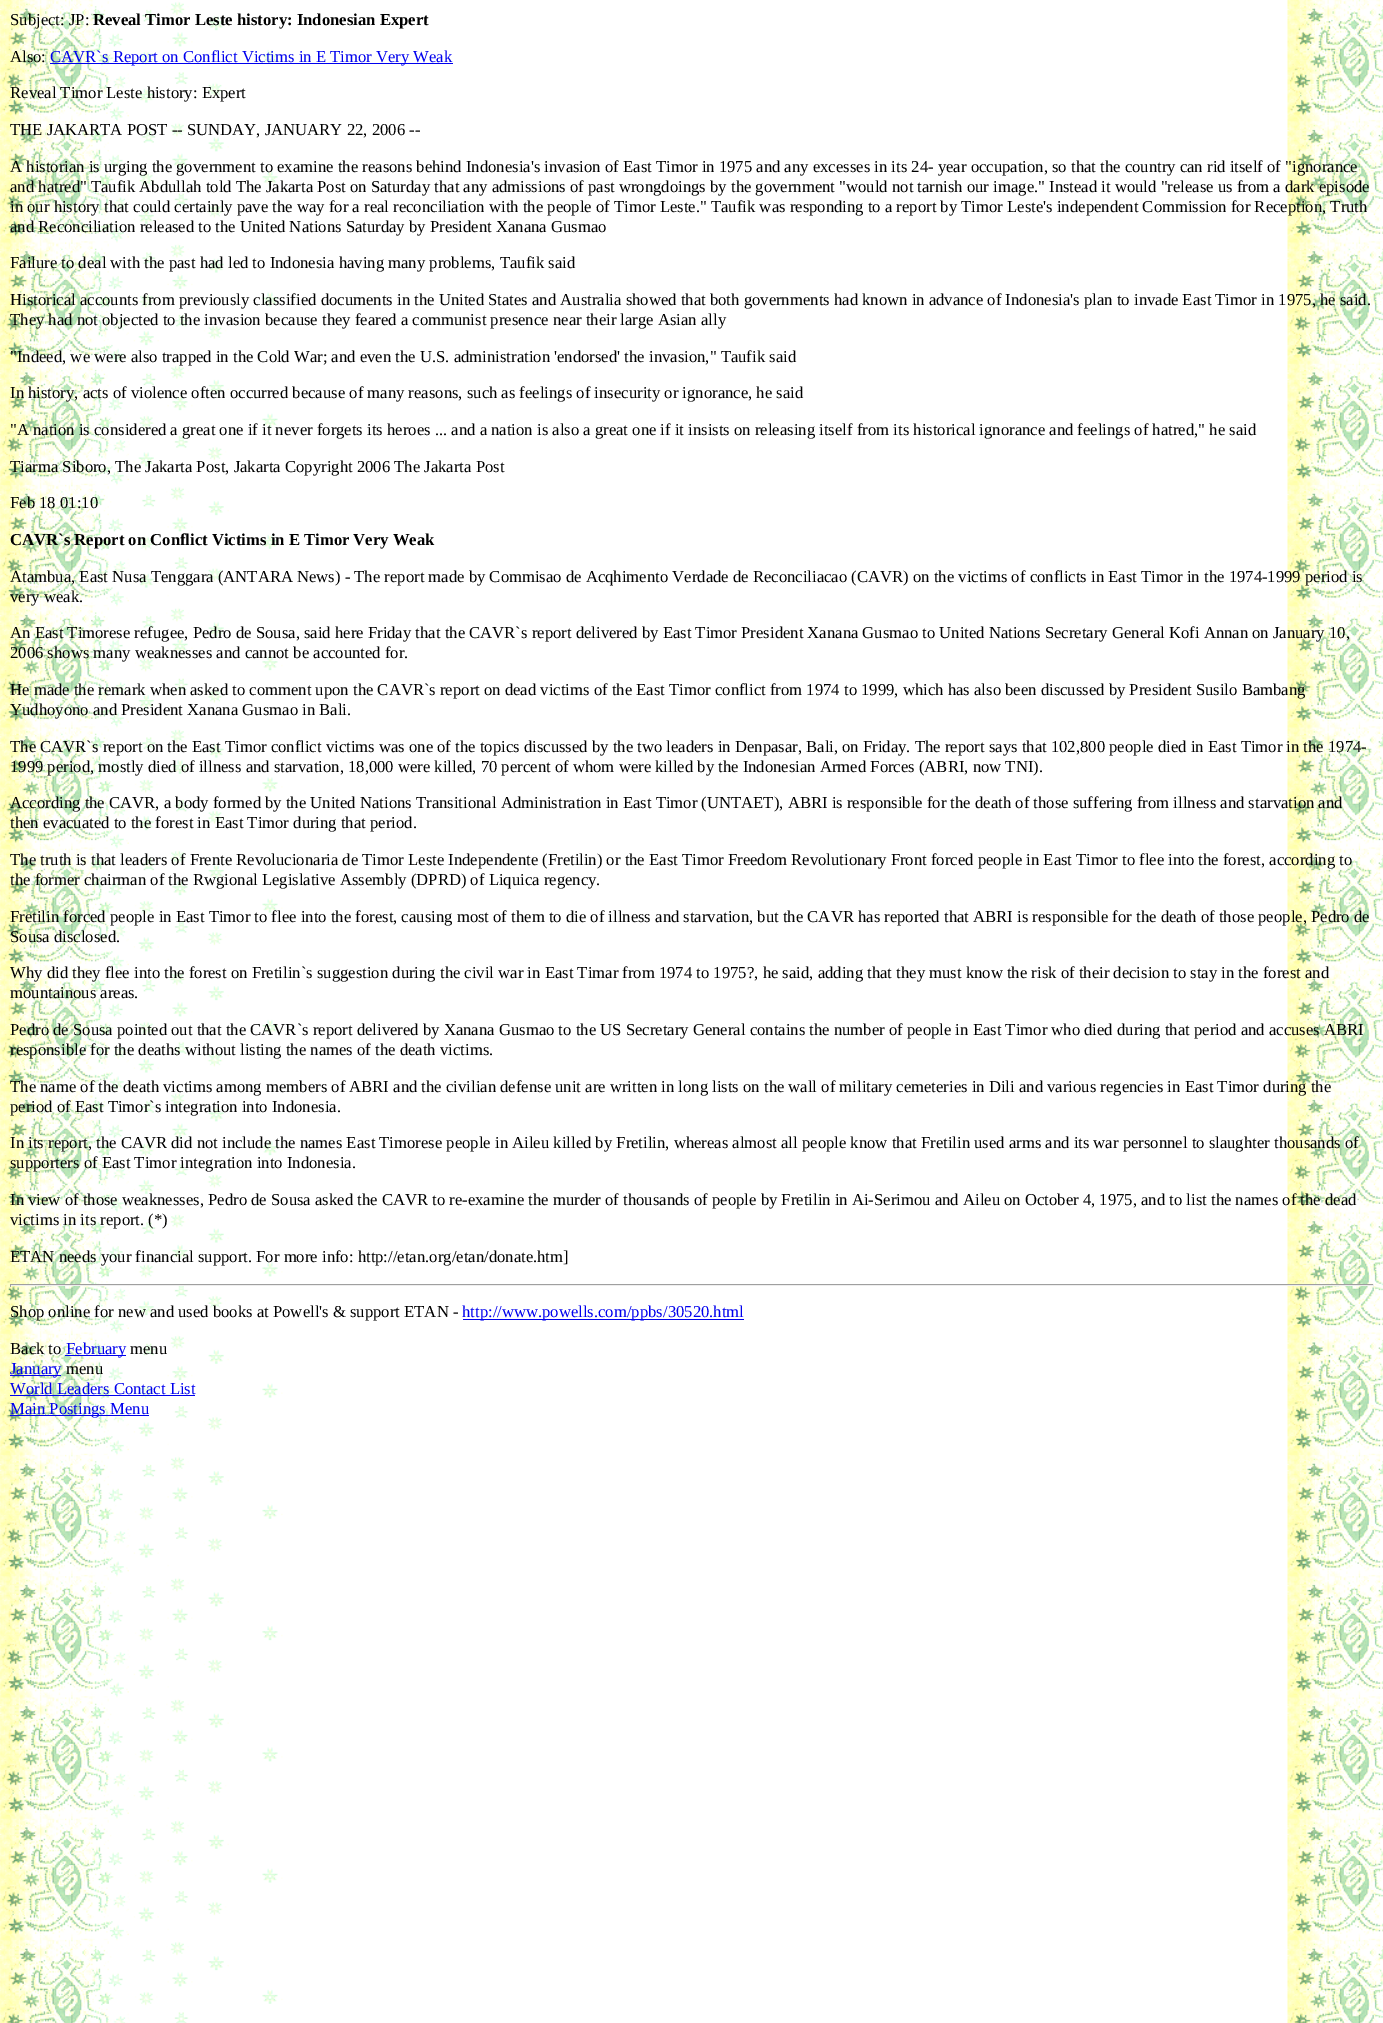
%!PS-Adobe-3.0
%%BoundingBox: 0 0 1383 2023
%%LanguageLevel: 3
%%Pages: 1
%%EndComments
%%BeginProlog
/setink { 3 { 255 div 3 1 roll } repeat setrgbcolor } def
/usefont { [ exch dup neg 0 0 3 -1 roll 0 0 ] selectfont } def
/drawtext { setink usefont moveto show } def
/fillbox { setink rectfill } def
/drawimage { 5 dict begin { /h /w /y /x /name } { exch def } forall
  gsave x y translate w h scale
  w h 8 [w 0 0 h 0 0] name (r) file false 3 colorimage grestore end } def
%%EndProlog
%%BeginSetup
<< /PageSize [1383 2023] >> setpagedevice
%%EndSetup
%%Page: 1 1
0 2023 translate 1 -1 scale
4 setmiterlimit
0 0 1383 2023 255 255 255 fillbox
(assets/img1.rgb) 0 0 1383 2023 drawimage
(Subject: JP:) 10 25 /LiberationSerif-Regular 16.67 0 0 0 drawtext
(Reveal Timor Leste history: Indonesian Expert) 93 25 /LiberationSerif-Bold 16.67 0 0 0 drawtext
(Also:) 10 62 /LiberationSerif-Regular 16.67 0 0 0 drawtext
50 63 403 1 0 0 238 fillbox
(CAVR`s Report on Conflict Victims in E Timor Very Weak) 50 62 /LiberationSerif-Regular 16.67 0 0 238 drawtext
(Reveal Timor Leste history: Expert) 10 98 /LiberationSerif-Regular 16.67 0 0 0 drawtext
(THE JAKARTA POST -- SUNDAY, JANUARY 22, 2006 --) 10 135 /LiberationSerif-Regular 16.67 0 0 0 drawtext
(A historian is urging the government to examine the reasons behind Indonesia's invasion of East Timor in 1975 and any excesses in its 24- year occupation, so that the country can rid itself of "ignorance) 10 172 /LiberationSerif-Regular 16.67 0 0 0 drawtext
(and hatred" Taufik Abdullah told The Jakarta Post on Saturday that any admissions of past wrongdoings by the government "would not tarnish our image." Instead it would "release us from a dark episode) 10 192 /LiberationSerif-Regular 16.67 0 0 0 drawtext
(in our history that could certainly pave the way for a real reconciliation with the people of Timor Leste." Taufik was responding to a report by Timor Leste's independent Commission for Reception, Truth) 10 212 /LiberationSerif-Regular 16.67 0 0 0 drawtext
(and Reconciliation released to the United Nations Saturday by President Xanana Gusmao) 10 232 /LiberationSerif-Regular 16.67 0 0 0 drawtext
(Failure to deal with the past had led to Indonesia having many problems, Taufik said) 10 268 /LiberationSerif-Regular 16.67 0 0 0 drawtext
(Historical accounts from previously classified documents in the United States and Australia showed that both governments had known in advance of Indonesia's plan to invade East Timor in 1975, he said.) 10 305 /LiberationSerif-Regular 16.67 0 0 0 drawtext
(They had not objected to the invasion because they feared a communist presence near their large Asian ally) 10 325 /LiberationSerif-Regular 16.67 0 0 0 drawtext
("Indeed, we were also trapped in the Cold War; and even the U.S. administration 'endorsed' the invasion," Taufik said) 10 362 /LiberationSerif-Regular 16.67 0 0 0 drawtext
(In history, acts of violence often occurred because of many reasons, such as feelings of insecurity or ignorance, he said) 10 398 /LiberationSerif-Regular 16.67 0 0 0 drawtext
("A nation is considered a great one if it never forgets its heroes ... and a nation is also a great one if it insists on releasing itself from its historical ignorance and feelings of hatred," he said) 10 435 /LiberationSerif-Regular 16.67 0 0 0 drawtext
(Tiarma Siboro, The Jakarta Post, Jakarta Copyright 2006 The Jakarta Post) 10 472 /LiberationSerif-Regular 16.67 0 0 0 drawtext
(Feb 18 01:10) 10 508 /LiberationSerif-Regular 16.67 0 0 0 drawtext
(CAVR`s Report on Conflict Victims in E Timor Very Weak) 10 545 /LiberationSerif-Bold 16.67 0 0 0 drawtext
(Atambua, East Nusa Tenggara \(ANTARA News\) - The report made by Commisao de Acqhimento Verdade de Reconciliacao \(CAVR\) on the victims of conflicts in East Timor in the 1974-1999 period is) 10 582 /LiberationSerif-Regular 16.67 0 0 0 drawtext
(very weak.) 10 602 /LiberationSerif-Regular 16.67 0 0 0 drawtext
(An East Timorese refugee, Pedro de Sousa, said here Friday that the CAVR`s report delivered by East Timor President Xanana Gusmao to United Nations Secretary General Kofi Annan on January 10,) 10 638 /LiberationSerif-Regular 16.67 0 0 0 drawtext
(2006 shows many weaknesses and cannot be accounted for.) 10 658 /LiberationSerif-Regular 16.67 0 0 0 drawtext
(He made the remark when asked to comment upon the CAVR`s report on dead victims of the East Timor conflict from 1974 to 1999, which has also been discussed by President Susilo Bambang) 10 695 /LiberationSerif-Regular 16.67 0 0 0 drawtext
(Yudhoyono and President Xanana Gusmao in Bali.) 10 715 /LiberationSerif-Regular 16.67 0 0 0 drawtext
(The CAVR`s report on the East Timor conflict victims was one of the topics discussed by the two leaders in Denpasar, Bali, on Friday. The report says that 102,800 people died in East Timor in the 1974-) 10 752 /LiberationSerif-Regular 16.67 0 0 0 drawtext
(1999 period, mostly died of illness and starvation, 18,000 were killed, 70 percent of whom were killed by the Indonesian Armed Forces \(ABRI, now TNI\).) 10 772 /LiberationSerif-Regular 16.67 0 0 0 drawtext
(According the CAVR, a body formed by the United Nations Transitional Administration in East Timor \(UNTAET\), ABRI is responsible for the death of those suffering from illness and starvation and) 10 808 /LiberationSerif-Regular 16.67 0 0 0 drawtext
(then evacuated to the forest in East Timor during that period.) 10 828 /LiberationSerif-Regular 16.67 0 0 0 drawtext
(The truth is that leaders of Frente Revolucionaria de Timor Leste Independente \(Fretilin\) or the East Timor Freedom Revolutionary Front forced people in East Timor to flee into the forest, according to) 10 865 /LiberationSerif-Regular 16.67 0 0 0 drawtext
(the former chairman of the Rwgional Legislative Assembly \(DPRD\) of Liquica regency.) 10 885 /LiberationSerif-Regular 16.67 0 0 0 drawtext
(Fretilin forced people in East Timor to flee into the forest, causing most of them to die of illness and starvation, but the CAVR has reported that ABRI is responsible for the death of those people, Pedro de) 10 922 /LiberationSerif-Regular 16.67 0 0 0 drawtext
(Sousa disclosed.) 10 942 /LiberationSerif-Regular 16.67 0 0 0 drawtext
(Why did they flee into the forest on Fretilin`s suggestion during the civil war in East Timar from 1974 to 1975?, he said, adding that they must know the risk of their decision to stay in the forest and) 10 978 /LiberationSerif-Regular 16.67 0 0 0 drawtext
(mountainous areas.) 10 998 /LiberationSerif-Regular 16.67 0 0 0 drawtext
(Pedro de Sousa pointed out that the CAVR`s report delivered by Xanana Gusmao to the US Secretary General contains the number of people in East Timor who died during that period and accuses ABRI) 10 1035 /LiberationSerif-Regular 16.67 0 0 0 drawtext
(responsible for the deaths without listing the names of the death victims.) 10 1055 /LiberationSerif-Regular 16.67 0 0 0 drawtext
(The name of the death victims among members of ABRI and the civilian defense unit are written in long lists on the wall of military cemeteries in Dili and various regencies in East Timor during the) 10 1092 /LiberationSerif-Regular 16.67 0 0 0 drawtext
(period of East Timor`s integration into Indonesia.) 10 1112 /LiberationSerif-Regular 16.67 0 0 0 drawtext
(In its report, the CAVR did not include the names East Timorese people in Aileu killed by Fretilin, whereas almost all people know that Fretilin used arms and its war personnel to slaughter thousands of) 10 1148 /LiberationSerif-Regular 16.67 0 0 0 drawtext
(supporters of East Timor integration into Indonesia.) 10 1168 /LiberationSerif-Regular 16.67 0 0 0 drawtext
(In view of those weaknesses, Pedro de Sousa asked the CAVR to re-examine the murder of thousands of people by Fretilin in Ai-Serimou and Aileu on October 4, 1975, and to list the names of the dead) 10 1205 /LiberationSerif-Regular 16.67 0 0 0 drawtext
(victims in its report. \(*\)) 10 1225 /LiberationSerif-Regular 16.67 0 0 0 drawtext
(ETAN needs your financial support. For more info: http://etan.org/etan/donate.htm]) 10 1262 /LiberationSerif-Regular 16.67 0 0 0 drawtext
10 1284 1364 1 159 159 159 fillbox
1373 1284 1 3 238 238 238 fillbox
10 1285 1364 1 238 238 238 fillbox
10 1284 1 3 159 159 159 fillbox
(Shop online for new and used books at Powell's & support ETAN -) 10 1317 /LiberationSerif-Regular 16.67 0 0 0 drawtext
463 1319 281 1 0 0 238 fillbox
(http://www.powells.com/ppbs/30520.html) 462 1317 /LiberationSerif-Regular 16.67 0 0 238 drawtext
(Back to) 10 1354 /LiberationSerif-Regular 16.67 0 0 0 drawtext
65 1355 61 1 0 0 238 fillbox
(February) 66 1354 /LiberationSerif-Regular 16.67 0 0 238 drawtext
(menu) 130 1354 /LiberationSerif-Regular 16.67 0 0 0 drawtext
10 1375 51 1 0 0 238 fillbox
(January) 10 1374 /LiberationSerif-Regular 16.67 0 0 238 drawtext
(menu) 66 1374 /LiberationSerif-Regular 16.67 0 0 0 drawtext
(World Leaders Contact List) 10 1394 /LiberationSerif-Regular 16.67 0 0 238 drawtext
10 1395 185 1 0 0 238 fillbox
10 1415 139 1 0 0 238 fillbox
(Main Postings Menu) 10 1414 /LiberationSerif-Regular 16.67 0 0 238 drawtext
showpage
%%EOF
